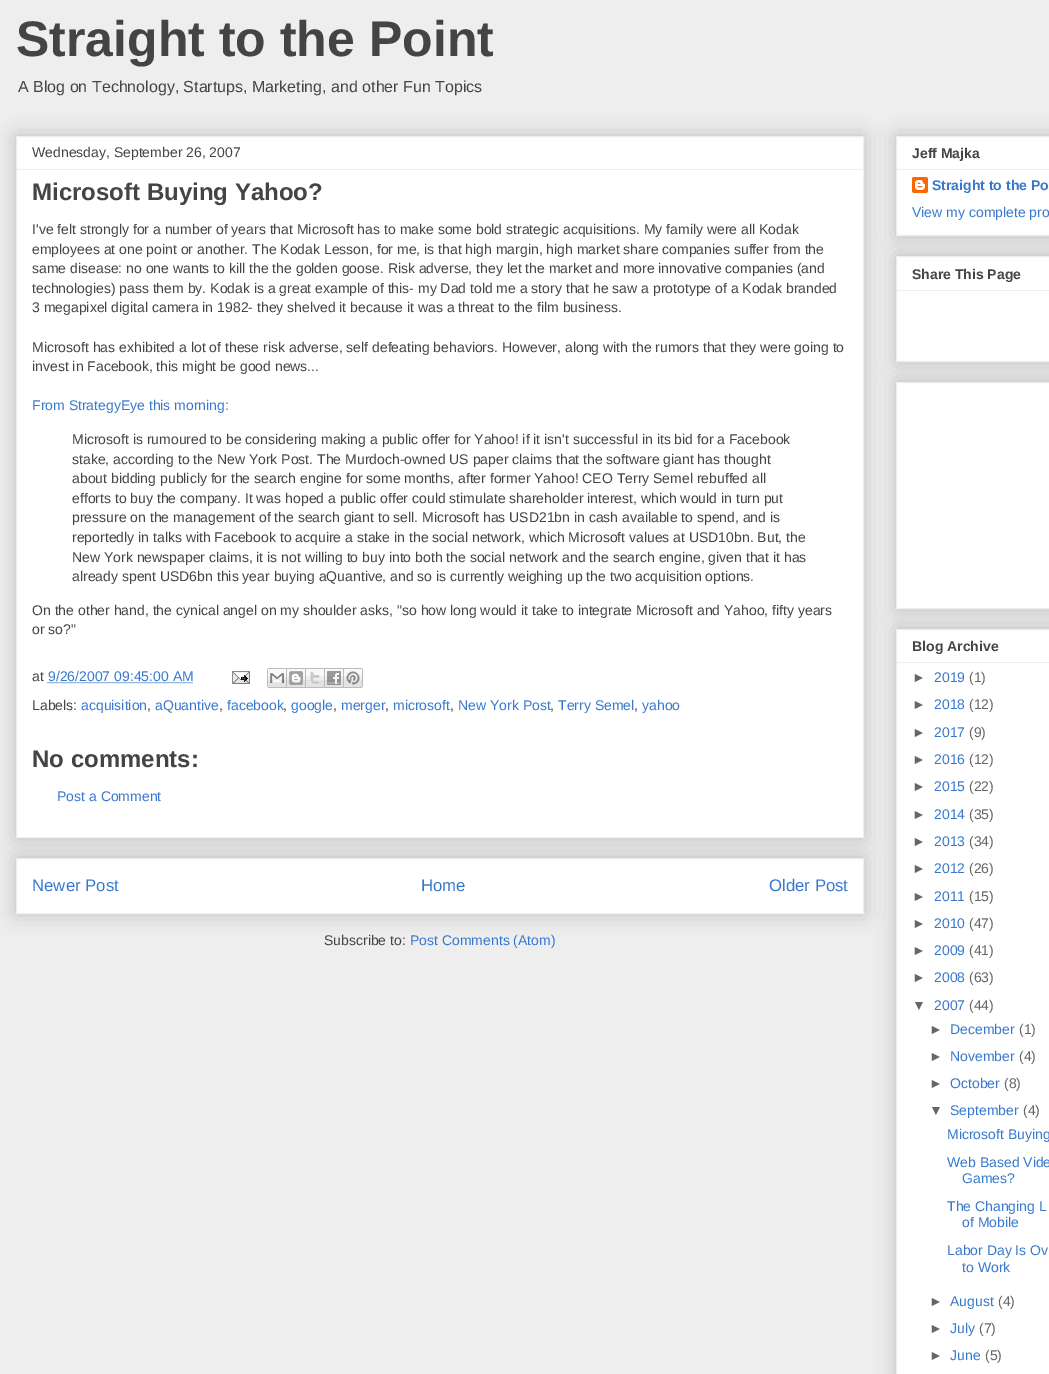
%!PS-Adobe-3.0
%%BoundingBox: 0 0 1049 1374
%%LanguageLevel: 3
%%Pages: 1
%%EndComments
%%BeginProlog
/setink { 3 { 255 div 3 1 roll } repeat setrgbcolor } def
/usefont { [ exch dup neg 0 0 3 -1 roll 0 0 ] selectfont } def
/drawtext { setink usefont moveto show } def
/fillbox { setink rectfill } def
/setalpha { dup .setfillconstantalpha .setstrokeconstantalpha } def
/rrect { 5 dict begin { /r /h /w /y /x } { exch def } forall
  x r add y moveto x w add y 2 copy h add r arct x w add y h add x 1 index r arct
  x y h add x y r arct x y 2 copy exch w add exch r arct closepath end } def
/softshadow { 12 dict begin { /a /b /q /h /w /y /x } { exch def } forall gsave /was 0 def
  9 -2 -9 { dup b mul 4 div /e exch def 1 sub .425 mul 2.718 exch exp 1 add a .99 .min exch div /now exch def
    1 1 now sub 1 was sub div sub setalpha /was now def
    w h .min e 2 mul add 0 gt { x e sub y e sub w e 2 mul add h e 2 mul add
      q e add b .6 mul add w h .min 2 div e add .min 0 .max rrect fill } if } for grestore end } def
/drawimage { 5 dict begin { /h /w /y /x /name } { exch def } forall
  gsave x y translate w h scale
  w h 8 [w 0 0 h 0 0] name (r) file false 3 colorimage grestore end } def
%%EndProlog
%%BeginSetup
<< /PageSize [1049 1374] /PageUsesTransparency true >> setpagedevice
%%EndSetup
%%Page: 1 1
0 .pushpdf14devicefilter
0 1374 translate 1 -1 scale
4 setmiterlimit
0 0 1049 1374 238 238 238 fillbox
(Straight to the Point) 16 56 /LiberationSans-Bold 50 68 68 68 drawtext
(A Blog on Technology, Startups, Marketing, and other Fun Topics) 18 92 /LiberationSans-Regular 16 68 68 68 drawtext
0 0 0 setink
16 858 848 56 0 10 0.2 softshadow
255 255 255 setink
16.5 858.5 moveto 863.5 858.5 lineto 863.5 913.5 lineto 16.5 913.5 lineto closepath gsave fill grestore
238 238 238 setink
stroke
0 0 0 setink
16 136 848 702 0 10 0.2 softshadow
255 255 255 setink
16.5 136.5 moveto 863.5 136.5 lineto 863.5 837.5 lineto 16.5 837.5 lineto closepath gsave fill grestore
238 238 238 setink
stroke
(Wednesday, September 26, 2007) 32 157 /LiberationSans-Regular 14 68 68 68 drawtext
17 169 846 1 238 238 238 fillbox
(Microsoft Buying Yahoo?) 32 200 /LiberationSans-Bold 24 68 68 68 drawtext
(I've felt strongly for a number of years that Microsoft has to make some bold strategic acquisitions. My family were all Kodak) 32 234 /LiberationSans-Regular 14 68 68 68 drawtext
(employees at one point or another. The Kodak Lesson, for me, is that high margin, high market share companies suffer from the) 32 254 /LiberationSans-Regular 14 68 68 68 drawtext
(same disease: no one wants to kill the the golden goose. Risk adverse, they let the market and more innovative companies \(and) 32 273 /LiberationSans-Regular 14 68 68 68 drawtext
(technologies\) pass them by. Kodak is a great example of this- my Dad told me a story that he saw a prototype of a Kodak branded) 32 293 /LiberationSans-Regular 14 68 68 68 drawtext
(3 megapixel digital camera in 1982- they shelved it because it was a threat to the film business.) 32 312 /LiberationSans-Regular 14 68 68 68 drawtext
(Microsoft has exhibited a lot of these risk adverse, self defeating behaviors. However, along with the rumors that they were going to) 32 352 /LiberationSans-Regular 14 68 68 68 drawtext
(invest in Facebook, this might be good news...) 32 371 /LiberationSans-Regular 14 68 68 68 drawtext
(From StrategyEye this morning:) 32 410 /LiberationSans-Regular 14 55 120 205 drawtext
(Microsoft is rumoured to be considering making a public offer for Yahoo! if it isn't successful in its bid for a Facebook) 72 444 /LiberationSans-Regular 14 68 68 68 drawtext
(stake, according to the New York Post. The Murdoch-owned US paper claims that the software giant has thought) 72 464 /LiberationSans-Regular 14 68 68 68 drawtext
(about bidding publicly for the search engine for some months, after former Yahoo! CEO Terry Semel rebuffed all) 72 483 /LiberationSans-Regular 14 68 68 68 drawtext
(efforts to buy the company. It was hoped a public offer could stimulate shareholder interest, which would in turn put) 72 503 /LiberationSans-Regular 14 68 68 68 drawtext
(pressure on the management of the search giant to sell. Microsoft has USD21bn in cash available to spend, and is) 72 522 /LiberationSans-Regular 14 68 68 68 drawtext
(reportedly in talks with Facebook to acquire a stake in the social network, which Microsoft values at USD10bn. But, the) 72 542 /LiberationSans-Regular 14 68 68 68 drawtext
(New York newspaper claims, it is not willing to buy into both the social network and the search engine, given that it has) 72 562 /LiberationSans-Regular 14 68 68 68 drawtext
(already spent USD6bn this year buying aQuantive, and so is currently weighing up the two acquisition options.) 72 581 /LiberationSans-Regular 14 68 68 68 drawtext
(On the other hand, the cynical angel on my shoulder asks, "so how long would it take to integrate Microsoft and Yahoo, fifty years) 32 615 /LiberationSans-Regular 14 68 68 68 drawtext
(or so?") 32 634 /LiberationSans-Regular 14 68 68 68 drawtext
(at) 32 681 /LiberationSans-Regular 14 68 68 68 drawtext
(9/26/2007 09:45:00 AM) 48 681 /LiberationSans-Regular 14 55 120 205 drawtext
[1 1] 0 setdash
47.5 682.5 moveto 193 682.5 lineto stroke
(assets/img1.rgb) 232 671 18 13 drawimage
(assets/img2.rgb) 267 668 20 20 drawimage
(assets/img3.rgb) 287 668 19 20 drawimage
(assets/img4.rgb) 306 668 19 20 drawimage
(assets/img5.rgb) 325 668 19 20 drawimage
(assets/img6.rgb) 344 668 19 20 drawimage
(Labels:) 32 710 /LiberationSans-Regular 14 68 68 68 drawtext
(acquisition) 81 710 /LiberationSans-Regular 14 55 120 205 drawtext
(,) 147 710 /LiberationSans-Regular 14 68 68 68 drawtext
(aQuantive) 155 710 /LiberationSans-Regular 14 55 120 205 drawtext
(,) 219 710 /LiberationSans-Regular 14 68 68 68 drawtext
(facebook) 227 710 /LiberationSans-Regular 14 55 120 205 drawtext
(,) 283 710 /LiberationSans-Regular 14 68 68 68 drawtext
(google) 291 710 /LiberationSans-Regular 14 55 120 205 drawtext
(,) 333 710 /LiberationSans-Regular 14 68 68 68 drawtext
(merger) 341 710 /LiberationSans-Regular 14 55 120 205 drawtext
(,) 385 710 /LiberationSans-Regular 14 68 68 68 drawtext
(microsoft) 393 710 /LiberationSans-Regular 14 55 120 205 drawtext
(,) 450 710 /LiberationSans-Regular 14 68 68 68 drawtext
(New York Post) 458 710 /LiberationSans-Regular 14 55 120 205 drawtext
(,) 550 710 /LiberationSans-Regular 14 68 68 68 drawtext
(Terry Semel) 558 710 /LiberationSans-Regular 14 55 120 205 drawtext
(,) 634 710 /LiberationSans-Regular 14 68 68 68 drawtext
(yahoo) 642 710 /LiberationSans-Regular 14 55 120 205 drawtext
(No comments:) 32 767 /LiberationSans-Bold 24 68 68 68 drawtext
(Post a Comment) 57 801 /LiberationSans-Regular 14 55 120 205 drawtext
(Newer Post) 32 891 /LiberationSans-Regular 16.75 55 120 205 drawtext
(Home) 421 891 /LiberationSans-Regular 16.75 55 120 205 drawtext
(Older Post) 769 891 /LiberationSans-Regular 16.75 55 120 205 drawtext
(Subscribe to:) 324 945 /LiberationSans-Regular 14 68 68 68 drawtext
(Post Comments \(Atom\)) 410 945 /LiberationSans-Regular 14 55 120 205 drawtext
0 0 0 setink
896 136 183 100 0 10 0.2 softshadow
255 255 255 setink
896.5 136.5 moveto 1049.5 136.5 lineto 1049.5 235.5 lineto 896.5 235.5 lineto closepath gsave fill grestore
238 238 238 setink
[] 0 setdash
stroke
(Jeff Majka) 912 158 /LiberationSans-Bold 14 68 68 68 drawtext
897 169 152 1 238 238 238 fillbox
(assets/img7.rgb) 912 177 16 16 drawimage
(Straight to the Po) 932 190 /LiberationSans-Bold 14 55 120 205 drawtext
(View my complete pro) 912 217 /LiberationSans-Regular 14 55 120 205 drawtext
0 0 0 setink
896 256 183 106 0 10 0.2 softshadow
255 255 255 setink
896.5 256.5 moveto 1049.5 256.5 lineto 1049.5 361.5 lineto 896.5 361.5 lineto closepath gsave fill grestore
238 238 238 setink
stroke
(Share This Page) 912 279 /LiberationSans-Bold 14 68 68 68 drawtext
897 290 152 1 238 238 238 fillbox
0 0 0 setink
896 382 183 227 0 10 0.2 softshadow
255 255 255 setink
896.5 382.5 moveto 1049.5 382.5 lineto 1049.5 608.5 lineto 896.5 608.5 lineto closepath gsave fill grestore
238 238 238 setink
stroke
0 0 0 setink
896 629 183 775 0 10 0.2 softshadow
255 255 255 setink
896.5 629.5 moveto 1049.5 629.5 lineto 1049.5 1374.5 lineto 896.5 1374.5 lineto closepath gsave fill grestore
238 238 238 setink
stroke
(Blog Archive) 912 651 /LiberationSans-Bold 14 68 68 68 drawtext
897 662 152 1 238 238 238 fillbox
(►) 912 682 /LiberationSans-Regular 14 102 102 102 drawtext
(2019) 934 682 /LiberationSans-Regular 14 55 120 205 drawtext
(\(1\)) 969 682 /LiberationSans-Regular 14 102 102 102 drawtext
(►) 912 709 /LiberationSans-Regular 14 102 102 102 drawtext
(2018) 934 709 /LiberationSans-Regular 14 55 120 205 drawtext
(\(12\)) 969 709 /LiberationSans-Regular 14 102 102 102 drawtext
(►) 912 737 /LiberationSans-Regular 14 102 102 102 drawtext
(2017) 934 737 /LiberationSans-Regular 14 55 120 205 drawtext
(\(9\)) 969 737 /LiberationSans-Regular 14 102 102 102 drawtext
(►) 912 764 /LiberationSans-Regular 14 102 102 102 drawtext
(2016) 934 764 /LiberationSans-Regular 14 55 120 205 drawtext
(\(12\)) 969 764 /LiberationSans-Regular 14 102 102 102 drawtext
(►) 912 791 /LiberationSans-Regular 14 102 102 102 drawtext
(2015) 934 791 /LiberationSans-Regular 14 55 120 205 drawtext
(\(22\)) 969 791 /LiberationSans-Regular 14 102 102 102 drawtext
(►) 912 819 /LiberationSans-Regular 14 102 102 102 drawtext
(2014) 934 819 /LiberationSans-Regular 14 55 120 205 drawtext
(\(35\)) 969 819 /LiberationSans-Regular 14 102 102 102 drawtext
(►) 912 846 /LiberationSans-Regular 14 102 102 102 drawtext
(2013) 934 846 /LiberationSans-Regular 14 55 120 205 drawtext
(\(34\)) 969 846 /LiberationSans-Regular 14 102 102 102 drawtext
(►) 912 873 /LiberationSans-Regular 14 102 102 102 drawtext
(2012) 934 873 /LiberationSans-Regular 14 55 120 205 drawtext
(\(26\)) 969 873 /LiberationSans-Regular 14 102 102 102 drawtext
(►) 912 901 /LiberationSans-Regular 14 102 102 102 drawtext
(2011) 934 901 /LiberationSans-Regular 14 55 120 205 drawtext
(\(15\)) 969 901 /LiberationSans-Regular 14 102 102 102 drawtext
(►) 912 928 /LiberationSans-Regular 14 102 102 102 drawtext
(2010) 934 928 /LiberationSans-Regular 14 55 120 205 drawtext
(\(47\)) 969 928 /LiberationSans-Regular 14 102 102 102 drawtext
(►) 912 955 /LiberationSans-Regular 14 102 102 102 drawtext
(2009) 934 955 /LiberationSans-Regular 14 55 120 205 drawtext
(\(41\)) 969 955 /LiberationSans-Regular 14 102 102 102 drawtext
(►) 912 982 /LiberationSans-Regular 14 102 102 102 drawtext
(2008) 934 982 /LiberationSans-Regular 14 55 120 205 drawtext
(\(63\)) 969 982 /LiberationSans-Regular 14 102 102 102 drawtext
(▼) 912 1010 /LiberationSans-Regular 14 102 102 102 drawtext
(2007) 934 1010 /LiberationSans-Regular 14 55 120 205 drawtext
(\(44\)) 969 1010 /LiberationSans-Regular 14 102 102 102 drawtext
(►) 929 1034 /LiberationSans-Regular 14 102 102 102 drawtext
(December) 950 1034 /LiberationSans-Regular 14 55 120 205 drawtext
(\(1\)) 1019 1034 /LiberationSans-Regular 14 102 102 102 drawtext
(►) 929 1061 /LiberationSans-Regular 14 102 102 102 drawtext
(November) 950 1061 /LiberationSans-Regular 14 55 120 205 drawtext
(\(4\)) 1019 1061 /LiberationSans-Regular 14 102 102 102 drawtext
(►) 929 1088 /LiberationSans-Regular 14 102 102 102 drawtext
(October) 950 1088 /LiberationSans-Regular 14 55 120 205 drawtext
(\(8\)) 1004 1088 /LiberationSans-Regular 14 102 102 102 drawtext
(▼) 929 1115 /LiberationSans-Regular 14 102 102 102 drawtext
(September) 950 1115 /LiberationSans-Regular 14 55 120 205 drawtext
(\(4\)) 1023 1115 /LiberationSans-Regular 14 102 102 102 drawtext
(Microsoft Buying) 947 1139 /LiberationSans-Regular 14 55 120 205 drawtext
(Web Based Vide) 947 1167 /LiberationSans-Regular 14 55 120 205 drawtext
(Games?) 962 1183 /LiberationSans-Regular 14 55 120 205 drawtext
(The Changing L) 947 1211 /LiberationSans-Regular 14 55 120 205 drawtext
(of Mobile) 962 1227 /LiberationSans-Regular 14 55 120 205 drawtext
(Labor Day Is Ov) 947 1255 /LiberationSans-Regular 14 55 120 205 drawtext
(to Work) 962 1272 /LiberationSans-Regular 14 55 120 205 drawtext
(►) 929 1306 /LiberationSans-Regular 14 102 102 102 drawtext
(August) 950 1306 /LiberationSans-Regular 14 55 120 205 drawtext
(\(4\)) 998 1306 /LiberationSans-Regular 14 102 102 102 drawtext
(►) 929 1333 /LiberationSans-Regular 14 102 102 102 drawtext
(July) 950 1333 /LiberationSans-Regular 14 55 120 205 drawtext
(\(7\)) 979 1333 /LiberationSans-Regular 14 102 102 102 drawtext
(►) 929 1360 /LiberationSans-Regular 14 102 102 102 drawtext
(June) 950 1360 /LiberationSans-Regular 14 55 120 205 drawtext
(\(5\)) 985 1360 /LiberationSans-Regular 14 102 102 102 drawtext
.poppdf14devicefilter showpage
%%EOF
